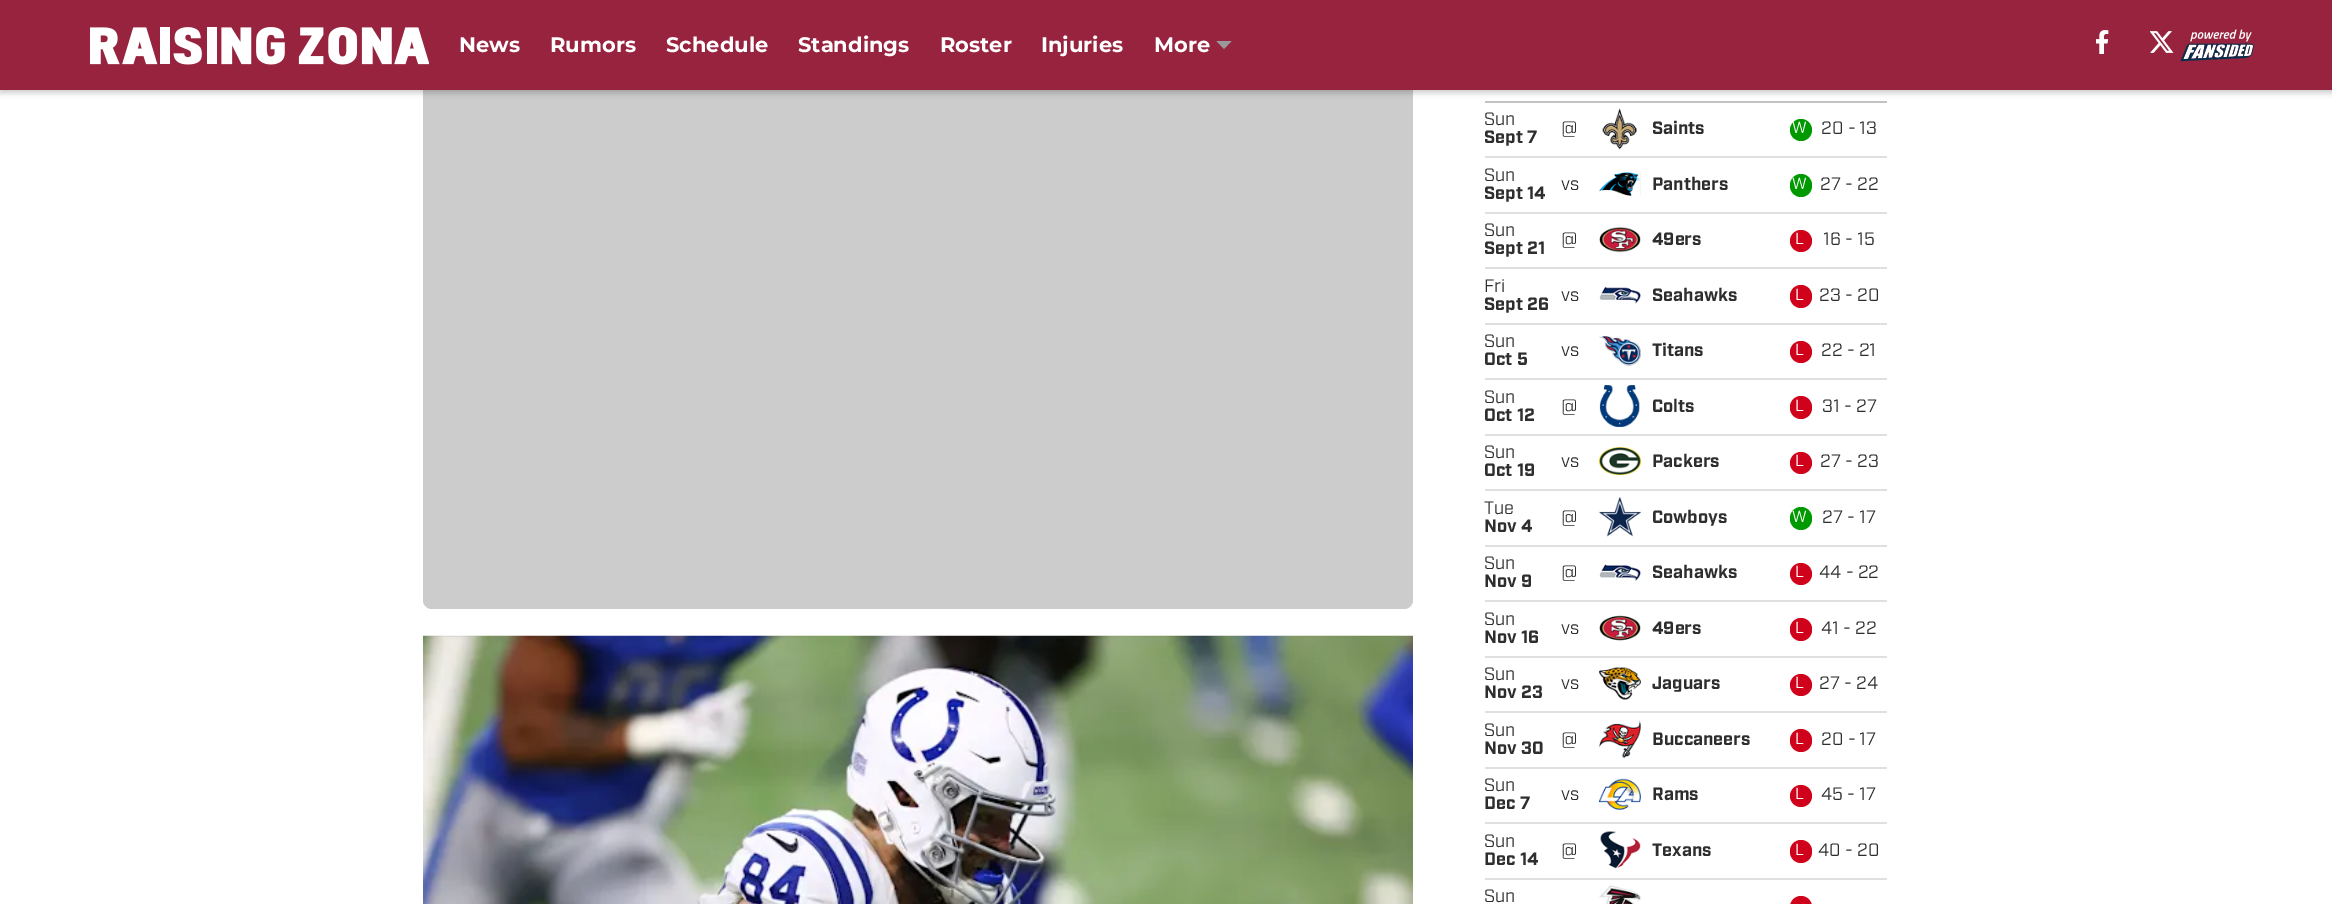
%!PS-Adobe-3.0
%%BoundingBox: 0 0 2332 904
%%LanguageLevel: 3
%%Pages: 1
%%EndComments
%%BeginProlog
/setink { 3 { 255 div 3 1 roll } repeat setrgbcolor } def
/usefont { [ exch dup neg 0 0 3 -1 roll 0 0 ] selectfont } def
/drawtext { setink usefont moveto show } def
/fillbox { setink rectfill } def
/setalpha { dup .setfillconstantalpha .setstrokeconstantalpha } def
/disc { newpath 0 360 arc closepath } def
/rrect { 5 dict begin { /r /h /w /y /x } { exch def } forall
  x r add y moveto x w add y 2 copy h add r arct x w add y h add x 1 index r arct
  x y h add x y r arct x y 2 copy exch w add exch r arct closepath end } def
/softshadow { 12 dict begin { /a /b /q /h /w /y /x } { exch def } forall gsave /was 0 def
  9 -2 -9 { dup b mul 4 div /e exch def 1 sub .425 mul 2.718 exch exp 1 add a .99 .min exch div /now exch def
    1 1 now sub 1 was sub div sub setalpha /was now def
    w h .min e 2 mul add 0 gt { x e sub y e sub w e 2 mul add h e 2 mul add
      q e add b .6 mul add w h .min 2 div e add .min 0 .max rrect fill } if } for grestore end } def
/drawimage { 5 dict begin { /h /w /y /x /name } { exch def } forall
  gsave x y translate w h scale
  w h 8 [w 0 0 h 0 0] name (r) file false 3 colorimage grestore end } def
%%EndProlog
%%BeginSetup
<< /PageSize [2332 904] /PageUsesTransparency true >> setpagedevice
%%EndSetup
%%Page: 1 1
0 .pushpdf14devicefilter
0 904 translate 1 -1 scale
4 setmiterlimit
0 0 2332 904 255 255 255 fillbox
204 204 204 setink
423 51 990 558 9 rrect fill
1485 101 402 2 194 194 194 fillbox
0 0 0 setink
0 3 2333 90 0 3 0.2 softshadow
0 0 2332 90 151 35 63 fillbox
(assets/img1.rgb) 90 27 339 38 drawimage
(News) 459 52 /Montserrat-Thin 21 255 255 255 drawtext
(Rumors) 550 52 /Montserrat-Thin 21 255 255 255 drawtext
(Schedule) 666 52 /Montserrat-Thin 21 255 255 255 drawtext
(Standings) 798 52 /Montserrat-Thin 21 255 255 255 drawtext
(Roster) 940 52 /Montserrat-Thin 21 255 255 255 drawtext
(Injuries) 1041 52 /Montserrat-Thin 21 255 255 255 drawtext
(More) 1154 52 /Montserrat-Thin 21 255 255 255 drawtext
153 153 153 setink
1216.5 41 moveto 1224 49 lineto 1231.5 41 lineto closepath eofill
(assets/img2.rgb) 2096 30 13 24 drawimage
(assets/img3.rgb) 2150 31 24 22 drawimage
(assets/img4.rgb) 2180 29 74 33 drawimage
(assets/img5.rgb) 423 635 990 269 drawimage
1485 156 402 2 224 224 224 fillbox
(Sun) 1484 125 /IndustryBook-Regular 18 46 46 46 drawtext
(Sept 7) 1484 143 /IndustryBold-Bold 18 46 46 46 drawtext
(@) 1561 134 /IndustryBook-Regular 18 46 46 46 drawtext
(assets/img6.rgb) 1602 108 35 42 drawimage
(Saints) 1652 134 /IndustryBold-Bold 18 46 46 46 drawtext
0 153 0 setink
1801 130 11 disc fill
(W) 1792 133 /IndustryBook-Regular 16 255 255 255 drawtext
(20 - 13) 1821 134 /IndustryBook-Regular 18 46 46 46 drawtext
1485 212 402 2 224 224 224 fillbox
(Sun) 1484 181 /IndustryBook-Regular 18 46 46 46 drawtext
(Sept 14) 1484 199 /IndustryBold-Bold 18 46 46 46 drawtext
(vs) 1561 190 /IndustryBook-Regular 18 46 46 46 drawtext
(assets/img7.rgb) 1599 172 42 24 drawimage
(Panthers) 1652 190 /IndustryBold-Bold 18 46 46 46 drawtext
0 153 0 setink
1790 174 22 23 11 rrect fill
(W) 1792 189 /IndustryBook-Regular 16 255 255 255 drawtext
(27 - 22) 1820 190 /IndustryBook-Regular 18 46 46 46 drawtext
1485 267 402 2 224 224 224 fillbox
(Sun) 1484 236 /IndustryBook-Regular 18 46 46 46 drawtext
(Sept 21) 1484 254 /IndustryBold-Bold 18 46 46 46 drawtext
(@) 1561 245 /IndustryBook-Regular 18 46 46 46 drawtext
(assets/img8.rgb) 1599 227 42 26 drawimage
(49ers) 1652 245 /IndustryBold-Bold 18 46 46 46 drawtext
208 2 27 setink
1801 241 11 disc fill
(L) 1795 244 /IndustryBook-Regular 16 255 255 255 drawtext
(16 - 15) 1823 245 /IndustryBook-Regular 18 46 46 46 drawtext
1485 323 402 2 224 224 224 fillbox
(Fri) 1484 292 /IndustryBook-Regular 18 46 46 46 drawtext
(Sept 26) 1484 310 /IndustryBold-Bold 18 46 46 46 drawtext
(vs) 1561 301 /IndustryBook-Regular 18 46 46 46 drawtext
(assets/img9.rgb) 1599 286 42 18 drawimage
(Seahawks) 1652 301 /IndustryBold-Bold 18 46 46 46 drawtext
208 2 27 setink
1790 285 22 23 11 rrect fill
(L) 1795 300 /IndustryBook-Regular 16 255 255 255 drawtext
(23 - 20) 1819 301 /IndustryBook-Regular 18 46 46 46 drawtext
1485 378 402 2 224 224 224 fillbox
(Sun) 1484 347 /IndustryBook-Regular 18 46 46 46 drawtext
(Oct 5) 1484 365 /IndustryBold-Bold 18 46 46 46 drawtext
(vs) 1561 356 /IndustryBook-Regular 18 46 46 46 drawtext
(assets/img10.rgb) 1599 335 42 31 drawimage
(Titans) 1652 356 /IndustryBold-Bold 18 46 46 46 drawtext
208 2 27 setink
1801 352 11 disc fill
(L) 1795 355 /IndustryBook-Regular 16 255 255 255 drawtext
(22 - 21) 1821 356 /IndustryBook-Regular 18 46 46 46 drawtext
1485 434 402 2 224 224 224 fillbox
(Sun) 1484 403 /IndustryBook-Regular 18 46 46 46 drawtext
(Oct 12) 1484 421 /IndustryBold-Bold 18 46 46 46 drawtext
(@) 1561 412 /IndustryBook-Regular 18 46 46 46 drawtext
(assets/img11.rgb) 1599 385 41 42 drawimage
(Colts) 1652 412 /IndustryBold-Bold 18 46 46 46 drawtext
208 2 27 setink
1790 396 22 23 11 rrect fill
(L) 1795 411 /IndustryBook-Regular 16 255 255 255 drawtext
(31 - 27) 1822 412 /IndustryBook-Regular 18 46 46 46 drawtext
1485 489 402 2 224 224 224 fillbox
(Sun) 1484 458 /IndustryBook-Regular 18 46 46 46 drawtext
(Oct 19) 1484 476 /IndustryBold-Bold 18 46 46 46 drawtext
(vs) 1561 467 /IndustryBook-Regular 18 46 46 46 drawtext
(assets/img12.rgb) 1599 447 42 28 drawimage
(Packers) 1652 467 /IndustryBold-Bold 18 46 46 46 drawtext
208 2 27 setink
1801 463 11 disc fill
(L) 1795 466 /IndustryBook-Regular 16 255 255 255 drawtext
(27 - 23) 1820 467 /IndustryBook-Regular 18 46 46 46 drawtext
1485 545 402 2 224 224 224 fillbox
(Tue) 1484 514 /IndustryBook-Regular 18 46 46 46 drawtext
(Nov 4) 1484 532 /IndustryBold-Bold 18 46 46 46 drawtext
(@) 1561 523 /IndustryBook-Regular 18 46 46 46 drawtext
(assets/img13.rgb) 1599 497 42 40 drawimage
(Cowboys) 1652 523 /IndustryBold-Bold 18 46 46 46 drawtext
0 153 0 setink
1790 507 22 23 11 rrect fill
(W) 1792 522 /IndustryBook-Regular 16 255 255 255 drawtext
(27 - 17) 1822 523 /IndustryBook-Regular 18 46 46 46 drawtext
1485 600 402 2 224 224 224 fillbox
(Sun) 1484 569 /IndustryBook-Regular 18 46 46 46 drawtext
(Nov 9) 1484 587 /IndustryBold-Bold 18 46 46 46 drawtext
(@) 1561 578 /IndustryBook-Regular 18 46 46 46 drawtext
(assets/img14.rgb) 1599 564 42 17 drawimage
(Seahawks) 1652 578 /IndustryBold-Bold 18 46 46 46 drawtext
208 2 27 setink
1801 574 11 disc fill
(L) 1795 577 /IndustryBook-Regular 16 255 255 255 drawtext
(44 - 22) 1819 578 /IndustryBook-Regular 18 46 46 46 drawtext
1485 656 402 2 224 224 224 fillbox
(Sun) 1484 625 /IndustryBook-Regular 18 46 46 46 drawtext
(Nov 16) 1484 643 /IndustryBold-Bold 18 46 46 46 drawtext
(vs) 1561 634 /IndustryBook-Regular 18 46 46 46 drawtext
(assets/img15.rgb) 1599 615 42 26 drawimage
(49ers) 1652 634 /IndustryBold-Bold 18 46 46 46 drawtext
208 2 27 setink
1790 618 22 23 11 rrect fill
(L) 1795 633 /IndustryBook-Regular 16 255 255 255 drawtext
(41 - 22) 1821 634 /IndustryBook-Regular 18 46 46 46 drawtext
1485 711 402 2 224 224 224 fillbox
(Sun) 1484 680 /IndustryBook-Regular 18 46 46 46 drawtext
(Nov 23) 1484 698 /IndustryBold-Bold 18 46 46 46 drawtext
(vs) 1561 689 /IndustryBook-Regular 18 46 46 46 drawtext
(assets/img16.rgb) 1599 667 42 33 drawimage
(Jaguars) 1652 689 /IndustryBold-Bold 18 46 46 46 drawtext
208 2 27 setink
1801 685 11 disc fill
(L) 1795 688 /IndustryBook-Regular 16 255 255 255 drawtext
(27 - 24) 1819 689 /IndustryBook-Regular 18 46 46 46 drawtext
1485 767 402 2 224 224 224 fillbox
(Sun) 1484 736 /IndustryBook-Regular 18 46 46 46 drawtext
(Nov 30) 1484 754 /IndustryBold-Bold 18 46 46 46 drawtext
(@) 1561 745 /IndustryBook-Regular 18 46 46 46 drawtext
(assets/img17.rgb) 1599 720 42 39 drawimage
(Buccaneers) 1652 745 /IndustryBold-Bold 18 46 46 46 drawtext
208 2 27 setink
1790 729 22 23 11 rrect fill
(L) 1795 744 /IndustryBook-Regular 16 255 255 255 drawtext
(20 - 17) 1821 745 /IndustryBook-Regular 18 46 46 46 drawtext
1485 822 402 2 224 224 224 fillbox
(Sun) 1484 791 /IndustryBook-Regular 18 46 46 46 drawtext
(Dec 7) 1484 809 /IndustryBold-Bold 18 46 46 46 drawtext
(vs) 1561 800 /IndustryBook-Regular 18 46 46 46 drawtext
(assets/img18.rgb) 1599 778 42 33 drawimage
(Rams) 1652 800 /IndustryBold-Bold 18 46 46 46 drawtext
208 2 27 setink
1801 796 11 disc fill
(L) 1795 799 /IndustryBook-Regular 16 255 255 255 drawtext
(45 - 17) 1821 800 /IndustryBook-Regular 18 46 46 46 drawtext
1485 878 402 2 224 224 224 fillbox
(Sun) 1484 847 /IndustryBook-Regular 18 46 46 46 drawtext
(Dec 14) 1484 865 /IndustryBold-Bold 18 46 46 46 drawtext
(@) 1561 856 /IndustryBook-Regular 18 46 46 46 drawtext
(assets/img19.rgb) 1600 831 41 38 drawimage
(Texans) 1652 856 /IndustryBold-Bold 18 46 46 46 drawtext
208 2 27 setink
1790 840 22 23 11 rrect fill
(L) 1795 855 /IndustryBook-Regular 16 255 255 255 drawtext
(40 - 20) 1818 856 /IndustryBook-Regular 18 46 46 46 drawtext
(Sun) 1484 902 /IndustryBook-Regular 18 46 46 46 drawtext
(assets/img20.rgb) 1599 885 42 19 drawimage
208 2 27 setink
1790 896 22 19 11 rrect fill
.poppdf14devicefilter showpage
%%EOF
